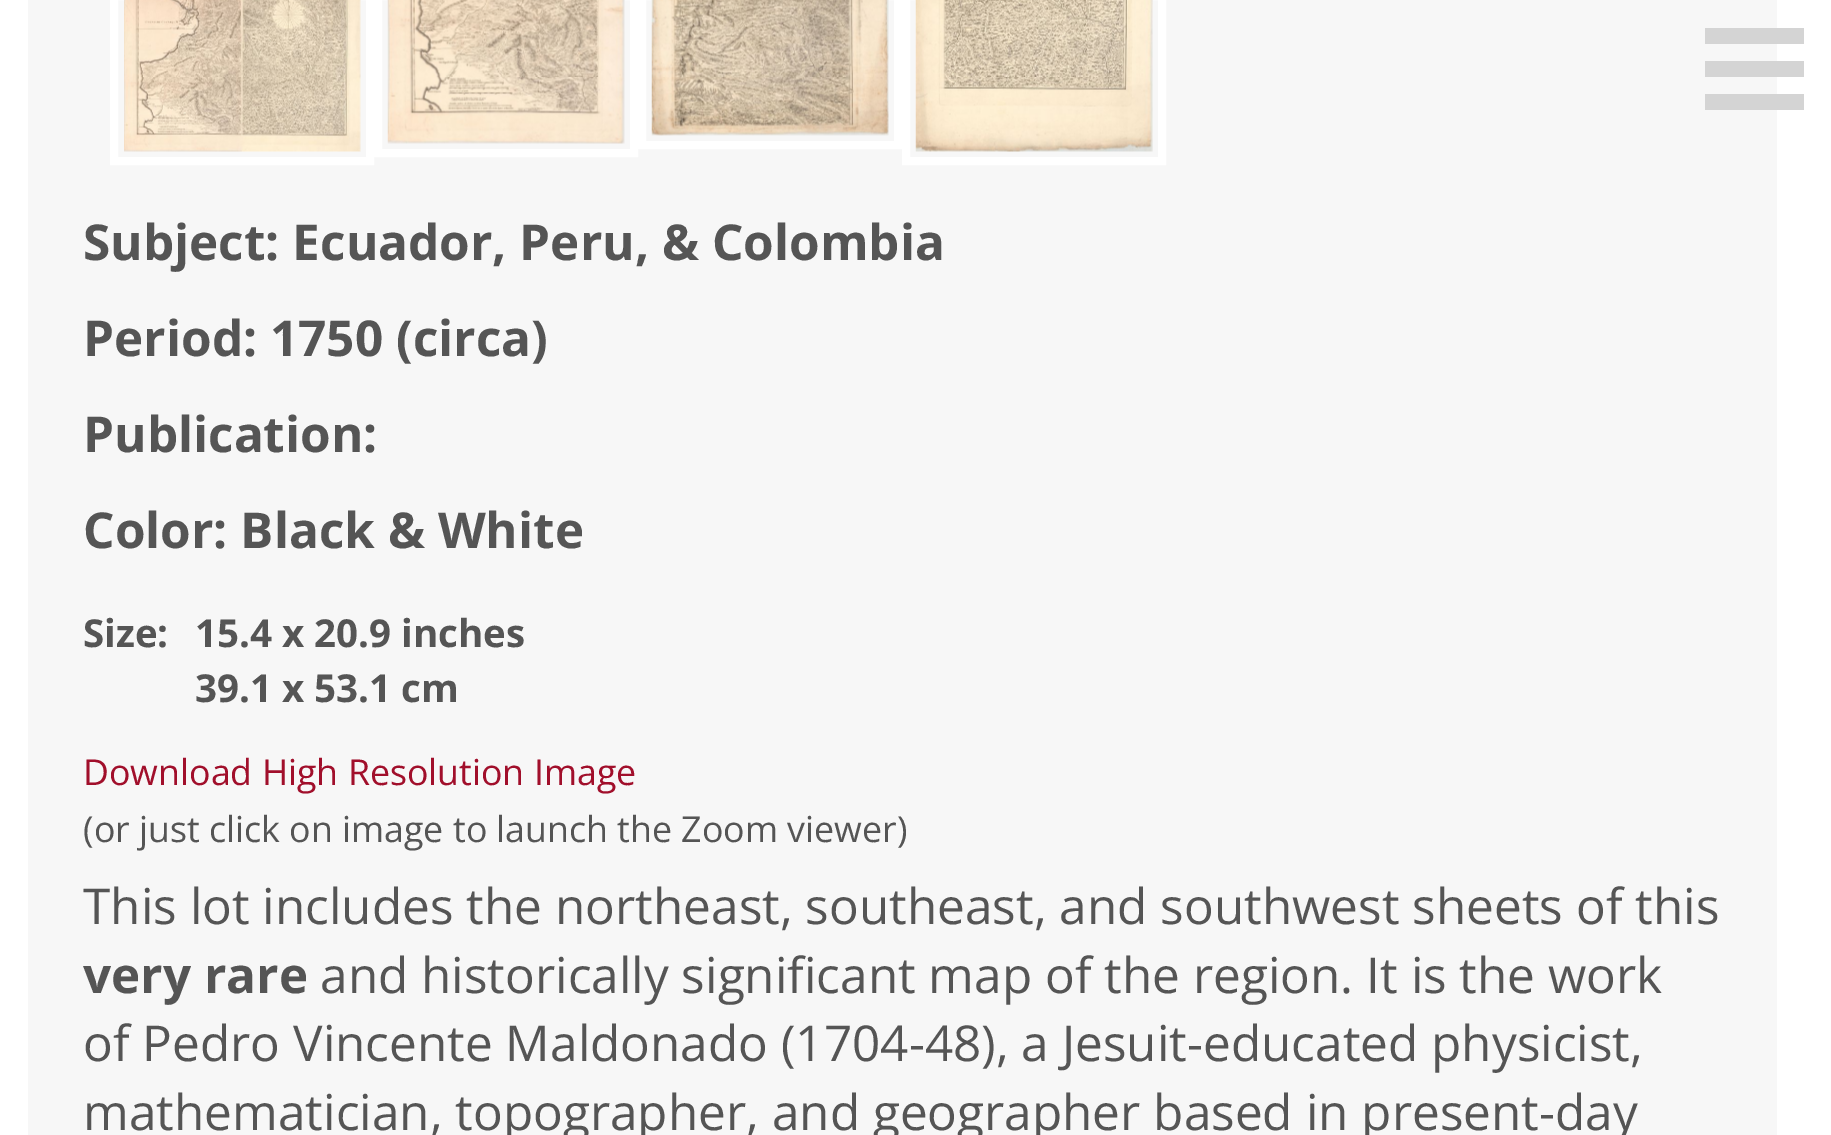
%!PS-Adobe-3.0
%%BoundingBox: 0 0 1831 1135
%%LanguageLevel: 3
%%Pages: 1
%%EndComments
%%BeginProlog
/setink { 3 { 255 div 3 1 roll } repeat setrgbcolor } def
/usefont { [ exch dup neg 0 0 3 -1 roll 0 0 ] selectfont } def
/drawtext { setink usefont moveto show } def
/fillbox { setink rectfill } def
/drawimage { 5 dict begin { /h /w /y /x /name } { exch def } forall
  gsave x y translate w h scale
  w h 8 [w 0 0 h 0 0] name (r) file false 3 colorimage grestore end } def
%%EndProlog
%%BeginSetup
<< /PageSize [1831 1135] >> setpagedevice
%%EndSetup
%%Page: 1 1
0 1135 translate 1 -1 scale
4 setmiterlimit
0 0 1831 1135 255 255 255 fillbox
28 0 1749 1135 247 247 247 fillbox
1705 28 99 16 212 212 212 fillbox
1705 61 99 16 212 212 212 fillbox
1705 94 99 16 212 212 212 fillbox
255 255 255 setink
8 setlinewidth
114 -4 256 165 rectstroke
(assets/img1.rgb) 124 0 237 152 drawimage
378 -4 256 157 rectstroke
(assets/img2.rgb) 387 0 238 144 drawimage
642 -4 256 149 rectstroke
(assets/img3.rgb) 651 0 238 136 drawimage
906 -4 256 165 rectstroke
(assets/img4.rgb) 915 0 238 152 drawimage
(Subject: Ecuador, Peru, & Colombia) 83 260 /OpenSans-Bold 49.5 85 85 85 drawtext
(Period: 1750 \(circa\)) 83 356 /OpenSans-Bold 49.5 85 85 85 drawtext
(Publication:) 83 452 /OpenSans-Bold 49.5 85 85 85 drawtext
(Color: Black & White) 83 548 /OpenSans-Bold 49.5 85 85 85 drawtext
(Size:) 83 647 /OpenSans-Bold 38.5 85 85 85 drawtext
(15.4 x 20.9 inches) 195 647 /OpenSans-Bold 38.5 85 85 85 drawtext
(39.1 x 53.1 cm) 195 702 /OpenSans-Bold 38.5 85 85 85 drawtext
(Download High Resolution Image) 83 785 /OpenSans-Regular 35.75 161 15 43 drawtext
(\(or just click on image to launch the Zoom viewer\)) 83 842 /OpenSans-Regular 35.75 85 85 85 drawtext
(This lot includes the northeast, southeast, and southwest sheets of this) 83 924 /OpenSans-Regular 49.5 85 85 85 drawtext
(very rare) 83 993 /OpenSans-Bold 49.5 85 85 85 drawtext
(and historically significant map of the region. It is the work) 320 993 /OpenSans-Regular 49.5 85 85 85 drawtext
(of Pedro Vincente Maldonado \(1704-48\), a Jesuit-educated physicist,) 83 1061 /OpenSans-Regular 49.5 85 85 85 drawtext
(mathematician, topographer, and geographer based in present-day) 83 1130 /OpenSans-Regular 49.5 85 85 85 drawtext
showpage
%%EOF
